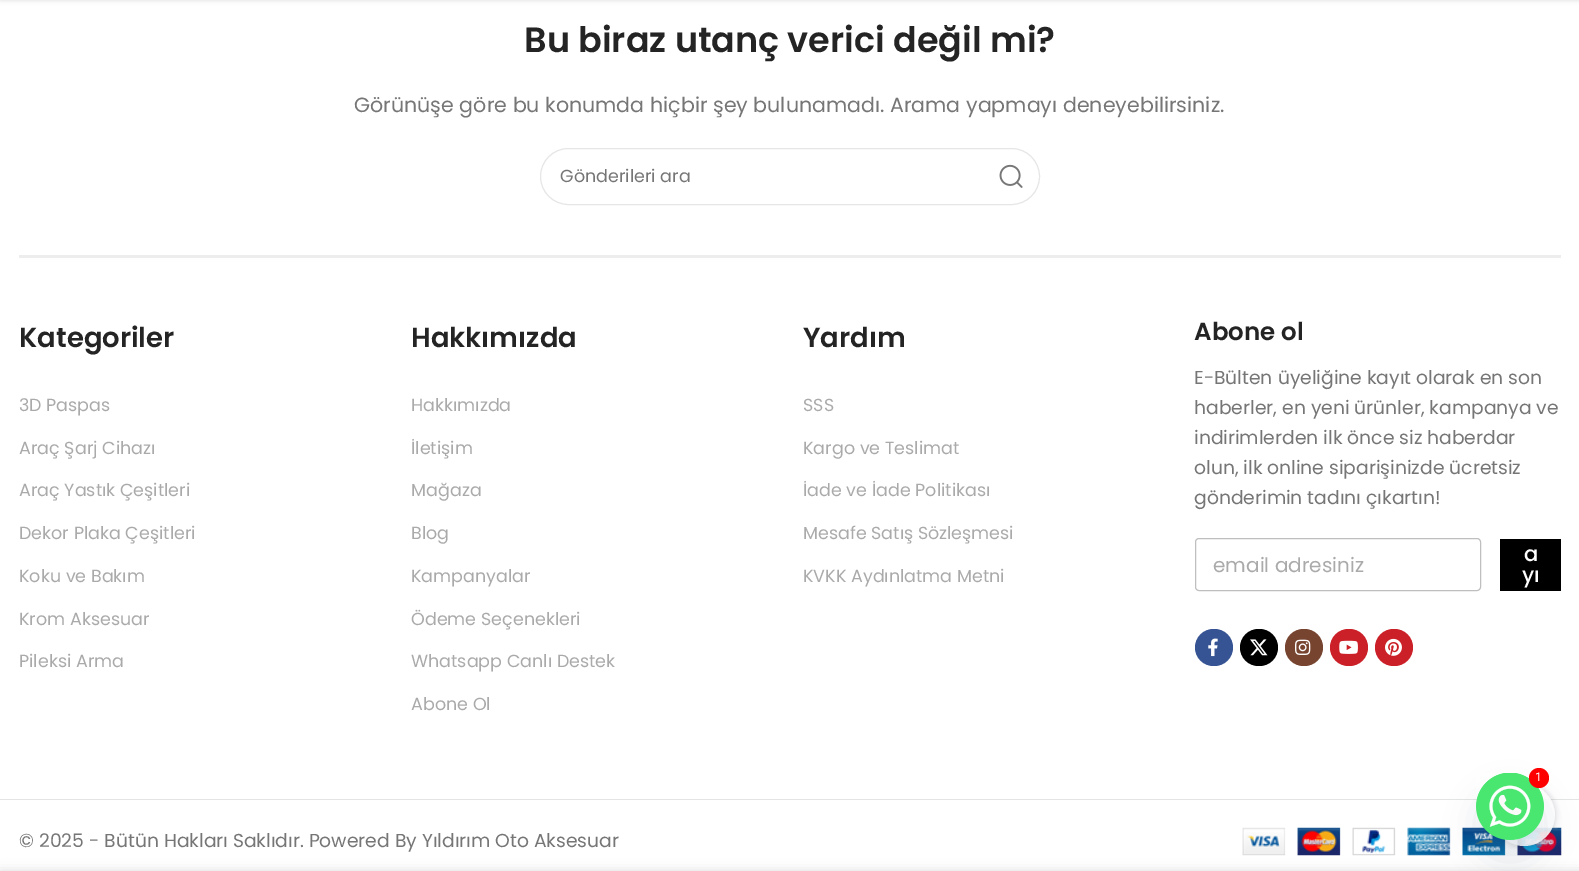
%!PS-Adobe-3.0
%%BoundingBox: 0 0 1579 871
%%LanguageLevel: 3
%%Pages: 1
%%EndComments
%%BeginProlog
/setink { 3 { 255 div 3 1 roll } repeat setrgbcolor } def
/usefont { [ exch dup neg 0 0 3 -1 roll 0 0 ] selectfont } def
/drawtext { setink usefont moveto show } def
/fillbox { setink rectfill } def
/setalpha { dup .setfillconstantalpha .setstrokeconstantalpha } def
/disc { newpath 0 360 arc closepath } def
/rrect { 5 dict begin { /r /h /w /y /x } { exch def } forall
  x r add y moveto x w add y 2 copy h add r arct x w add y h add x 1 index r arct
  x y h add x y r arct x y 2 copy exch w add exch r arct closepath end } def
/softshadow { 12 dict begin { /a /b /q /h /w /y /x } { exch def } forall gsave /was 0 def
  9 -2 -9 { dup b mul 4 div /e exch def 1 sub .425 mul 2.718 exch exp 1 add a .99 .min exch div /now exch def
    1 1 now sub 1 was sub div sub setalpha /was now def
    w h .min e 2 mul add 0 gt { x e sub y e sub w e 2 mul add h e 2 mul add
      q e add b .6 mul add w h .min 2 div e add .min 0 .max rrect fill } if } for grestore end } def
/drawimage { 5 dict begin { /h /w /y /x /name } { exch def } forall
  gsave x y translate w h scale
  w h 8 [w 0 0 h 0 0] name (r) file false 3 colorimage grestore end } def
%%EndProlog
%%BeginSetup
<< /PageSize [1579 871] /PageUsesTransparency true >> setpagedevice
%%EndSetup
%%Page: 1 1
0 .pushpdf14devicefilter
0 871 translate 1 -1 scale
4 setmiterlimit
0 0 1579 871 255 255 255 fillbox
0 0 0 setink
0 -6 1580 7 0 2 0.1 softshadow
(Bu biraz utanç verici değil mi?) 524 52 /Poppins-SemiBold 35 36 36 36 drawtext
(Görünüşe göre bu konumda hiçbir şey bulunamadı. Arama yapmayı deneyebilirsiniz.) 354 112 /Poppins-Regular 20.6 118 118 118 drawtext
230 230 230 setink
540.5 148.5 499 56 28 rrect stroke
(Gönderileri ara) 560 182 /Poppins-Regular 17.5 118 118 118 drawtext
(assets/img1.rgb) 999 164 24 24 drawimage
19 255 1542 3 237 237 237 fillbox
(Kategoriler) 19 347 /Poppins-SemiBold 27.5 36 36 36 drawtext
(3D Paspas) 19 411 /Poppins-Regular 17.5 170 170 170 drawtext
(Araç Şarj Cihazı) 19 454 /Poppins-Regular 17.5 170 170 170 drawtext
(Araç Yastık Çeşitleri) 19 496 /Poppins-Regular 17.5 170 170 170 drawtext
(Dekor Plaka Çeşitleri) 19 539 /Poppins-Regular 17.5 170 170 170 drawtext
(Koku ve Bakım) 19 582 /Poppins-Regular 17.5 170 170 170 drawtext
(Krom Aksesuar) 19 625 /Poppins-Regular 17.5 170 170 170 drawtext
(Pileksi Arma) 19 667 /Poppins-Regular 17.5 170 170 170 drawtext
(Hakkımızda) 411 347 /Poppins-SemiBold 27.5 36 36 36 drawtext
(Hakkımızda) 411 411 /Poppins-Regular 17.5 170 170 170 drawtext
(İletişim) 411 454 /Poppins-Regular 17.5 170 170 170 drawtext
(Mağaza) 411 496 /Poppins-Regular 17.5 170 170 170 drawtext
(Blog) 411 539 /Poppins-Regular 17.5 170 170 170 drawtext
(Kampanyalar) 411 582 /Poppins-Regular 17.5 170 170 170 drawtext
(Ödeme Seçenekleri) 411 625 /Poppins-Regular 17.5 170 170 170 drawtext
(Whatsapp Canlı Destek) 411 667 /Poppins-Regular 17.5 170 170 170 drawtext
(Abone Ol) 411 710 /Poppins-Regular 17.5 170 170 170 drawtext
(Yardım) 803 347 /Poppins-SemiBold 27.5 36 36 36 drawtext
(SSS) 803 411 /Poppins-Regular 17.5 170 170 170 drawtext
(Kargo ve Teslimat) 803 454 /Poppins-Regular 17.5 170 170 170 drawtext
(İade ve İade Politikası) 803 496 /Poppins-Regular 17.5 170 170 170 drawtext
(Mesafe Satış Sözleşmesi) 803 539 /Poppins-Regular 17.5 170 170 170 drawtext
(KVKK Aydınlatma Metni) 803 582 /Poppins-Regular 17.5 170 170 170 drawtext
(Abone ol) 1194 340 /Poppins-SemiBold 24.5 36 36 36 drawtext
(E-Bülten üyeliğine kayıt olarak en son) 1194 384 /Poppins-Regular 18.75 118 118 118 drawtext
(haberler, en yeni ürünler, kampanya ve) 1194 414 /Poppins-Regular 18.75 118 118 118 drawtext
(indirimlerden ilk önce siz haberdar) 1194 444 /Poppins-Regular 18.75 118 118 118 drawtext
(olun, ilk online siparişinizde ücretsiz) 1194 474 /Poppins-Regular 18.75 118 118 118 drawtext
(gönderimin tadını çıkartın!) 1194 504 /Poppins-Regular 18.75 118 118 118 drawtext
191 191 191 setink
1195.5 538.5 285 52 3.5 rrect stroke
(email adresiniz) 1213 572 /Poppins-Regular 20 170 170 170 drawtext
1500 539 61 52 0 0 0 fillbox
(a) 1524 561 /Poppins-Medium 21 255 255 255 drawtext
(yı) 1522 582 /Poppins-Medium 21 255 255 255 drawtext
54 84 147 setink
1195 629 38 37 18.5 rrect fill
(assets/img2.rgb) 1208 638 10 19 drawimage
0 0 0 setink
1240 629 38 37 18.5 rrect fill
(assets/img3.rgb) 1250 639 18 17 drawimage
119 68 48 setink
1285 629 38 37 18.5 rrect fill
(assets/img4.rgb) 1295 639 16 16 drawimage
203 32 39 setink
1330 629 38 37 18.5 rrect fill
(assets/img5.rgb) 1339 640 19 14 drawimage
1375 629 38 37 18.5 rrect fill
(assets/img6.rgb) 1385 638 17 18 drawimage
0 799 1579 1 228 228 228 fillbox
(© 2025 - Bütün Hakları Saklıdır. Powered By Yıldırım Oto Aksesuar) 19 847 /Poppins-Regular 18.75 118 118 118 drawtext
(assets/img7.rgb) 1242 827 320 29 drawimage
gsave
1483 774 moveto 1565 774 lineto 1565 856 lineto 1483 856 lineto closepath 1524 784 moveto 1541 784 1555 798 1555 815 curveto 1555 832 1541 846 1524 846 curveto 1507 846 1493 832 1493 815 curveto 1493 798 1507 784 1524 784 curveto closepath eoclip newpath
0 0 0 setink
1493 784 62 62 31 3 0.17 softshadow
grestore
0.9 setalpha
255 255 255 setink
1524 815 31 disc fill
1 setalpha
73 104 126 setink
1476 793 68 67 33.5 15 0.16 softshadow
73 230 112 setink
1476 773 68 67 33.5 rrect fill
(assets/img8.rgb) 1476 773 68 67 drawimage
255 0 0 setink
1539 778 10 disc fill
(1) 1535 781 /Roboto-Regular 12 255 255 255 drawtext
0 0 0 setink
0 871 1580 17 0 5.5 0.14 softshadow
.poppdf14devicefilter showpage
%%EOF
